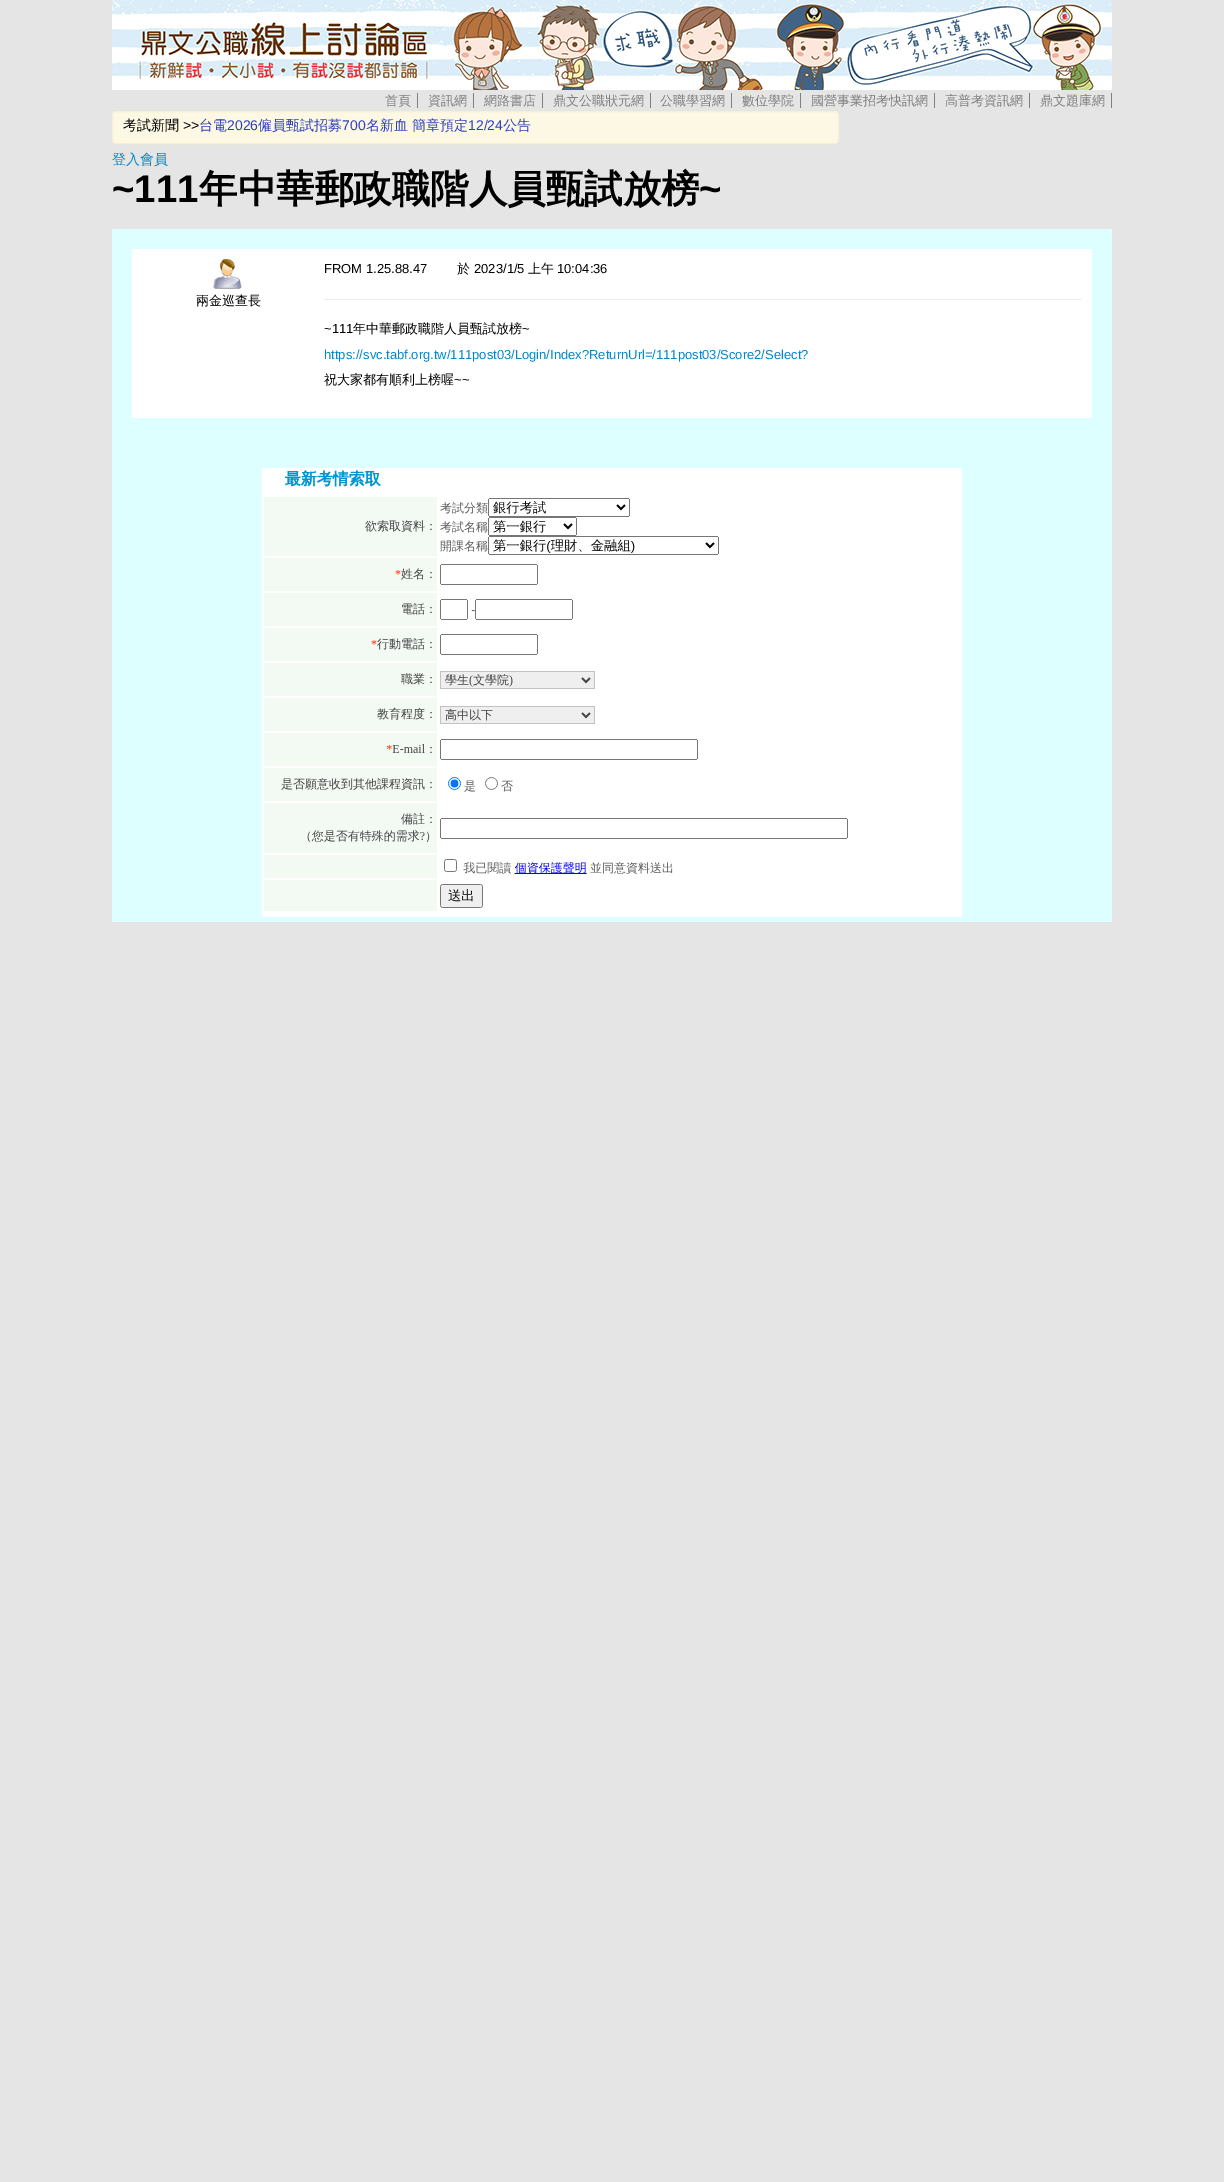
%!PS-Adobe-3.0
%%BoundingBox: 0 0 1224 2182
%%LanguageLevel: 3
%%Pages: 1
%%EndComments
%%BeginProlog
/setink { 3 { 255 div 3 1 roll } repeat setrgbcolor } def
/usefont { [ exch dup neg 0 0 3 -1 roll 0 0 ] selectfont } def
/drawtext { setink usefont moveto show } def
/fillbox { setink rectfill } def
/rrect { 5 dict begin { /r /h /w /y /x } { exch def } forall
  x r add y moveto x w add y 2 copy h add r arct x w add y h add x 1 index r arct
  x y h add x y r arct x y 2 copy exch w add exch r arct closepath end } def
/drawimage { 5 dict begin { /h /w /y /x /name } { exch def } forall
  gsave x y translate w h scale
  w h 8 [w 0 0 h 0 0] name (r) file false 3 colorimage grestore end } def
%%EndProlog
%%BeginSetup
<< /PageSize [1224 2182] >> setpagedevice
%%EndSetup
%%Page: 1 1
0 2182 translate 1 -1 scale
4 setmiterlimit
0 0 1224 2182 229 229 229 fillbox
(assets/img1.rgb) 112 0 1000 90 drawimage
(首頁) 385 105 /WenQuanYiZenHei-Medium 13 128 128 128 drawtext
417 93 1 15 128 128 128 fillbox
(資訊網) 428 105 /WenQuanYiZenHei-Medium 13 128 128 128 drawtext
473 93 1 15 128 128 128 fillbox
(網路書店) 484 105 /WenQuanYiZenHei-Medium 13 128 128 128 drawtext
542 93 1 15 128 128 128 fillbox
(鼎文公職狀元網) 553 105 /WenQuanYiZenHei-Medium 13 128 128 128 drawtext
650 93 1 15 128 128 128 fillbox
(公職學習網) 660 105 /WenQuanYiZenHei-Medium 13 128 128 128 drawtext
731 93 1 15 128 128 128 fillbox
(數位學院) 742 105 /WenQuanYiZenHei-Medium 13 128 128 128 drawtext
800 93 1 15 128 128 128 fillbox
(國營事業招考快訊網) 811 105 /WenQuanYiZenHei-Medium 13 128 128 128 drawtext
934 93 1 15 128 128 128 fillbox
(高普考資訊網) 945 105 /WenQuanYiZenHei-Medium 13 128 128 128 drawtext
1029 93 1 15 128 128 128 fillbox
(鼎文題庫網) 1040 105 /WenQuanYiZenHei-Medium 13 128 128 128 drawtext
1111 93 1 15 128 128 128 fillbox
252 248 227 setink
112.5 111.5 726 32 3.5 rrect gsave fill grestore
251 238 213 setink
stroke
(考試新聞) 123 130 /WenQuanYiZenHei-Medium 14 0 0 0 drawtext
(>>) 183 130 /LiberationSans-Regular 14 0 0 0 drawtext
(台電) 199 130 /WenQuanYiZenHei-Medium 14 46 63 191 drawtext
(2026) 227 130 /LiberationSans-Regular 14 46 63 191 drawtext
(僱員甄試招募) 258 130 /WenQuanYiZenHei-Medium 14 46 63 191 drawtext
(700) 342 130 /LiberationSans-Regular 14 46 63 191 drawtext
(名新血 簡章預定) 366 130 /WenQuanYiZenHei-Medium 14 46 63 191 drawtext
(12/24) 468 130 /LiberationSans-Regular 14 46 63 191 drawtext
(公告) 503 130 /WenQuanYiZenHei-Medium 14 46 63 191 drawtext
(登入會員) 112 164 /WenQuanYiZenHei-Medium 14 0 136 204 drawtext
(~111) 112 202 /LiberationSans-Bold 38.5 0 0 0 drawtext
(年中華郵政職階人員甄試放榜) 199 202 /WenQuanYiZenHei-Bold 38.5 0 0 0 drawtext
(~) 699 202 /LiberationSans-Bold 38.5 0 0 0 drawtext
112 229 1000 693 221 255 255 fillbox
132 249 960 169 255 255 255 fillbox
(assets/img2.rgb) 213 259 29 30 drawimage
(兩金巡查長) 196 305 /WenQuanYiZenHei-Medium 13 0 0 0 drawtext
(FROM 1.25.88.47) 324 273 /LiberationSans-Regular 13 0 0 0 drawtext
(於) 457 273 /WenQuanYiZenHei-Medium 13 0 0 0 drawtext
(2023/1/5) 474 273 /LiberationSans-Regular 13 0 0 0 drawtext
(上午) 528 273 /WenQuanYiZenHei-Medium 13 0 0 0 drawtext
(10:04:36) 557 273 /LiberationSans-Regular 13 0 0 0 drawtext
324 299 758 1 238 238 238 fillbox
(~111) 324 333 /LiberationSans-Regular 13 0 0 0 drawtext
(年中華郵政職階人員甄試放榜) 353 333 /WenQuanYiZenHei-Medium 13 0 0 0 drawtext
(~) 522 333 /LiberationSans-Regular 13 0 0 0 drawtext
(https://svc.tabf.org.tw/111post03/Login/Index?ReturnUrl=/111post03/Score2/Select?) 324 359 /LiberationSans-Regular 13 0 136 204 drawtext
(祝大家都有順利上榜喔) 324 384 /WenQuanYiZenHei-Medium 13 0 0 0 drawtext
(~~) 454 384 /LiberationSans-Regular 13 0 0 0 drawtext
(assets/img3.rgb) 262 468 700 449 drawimage
showpage
%%EOF
